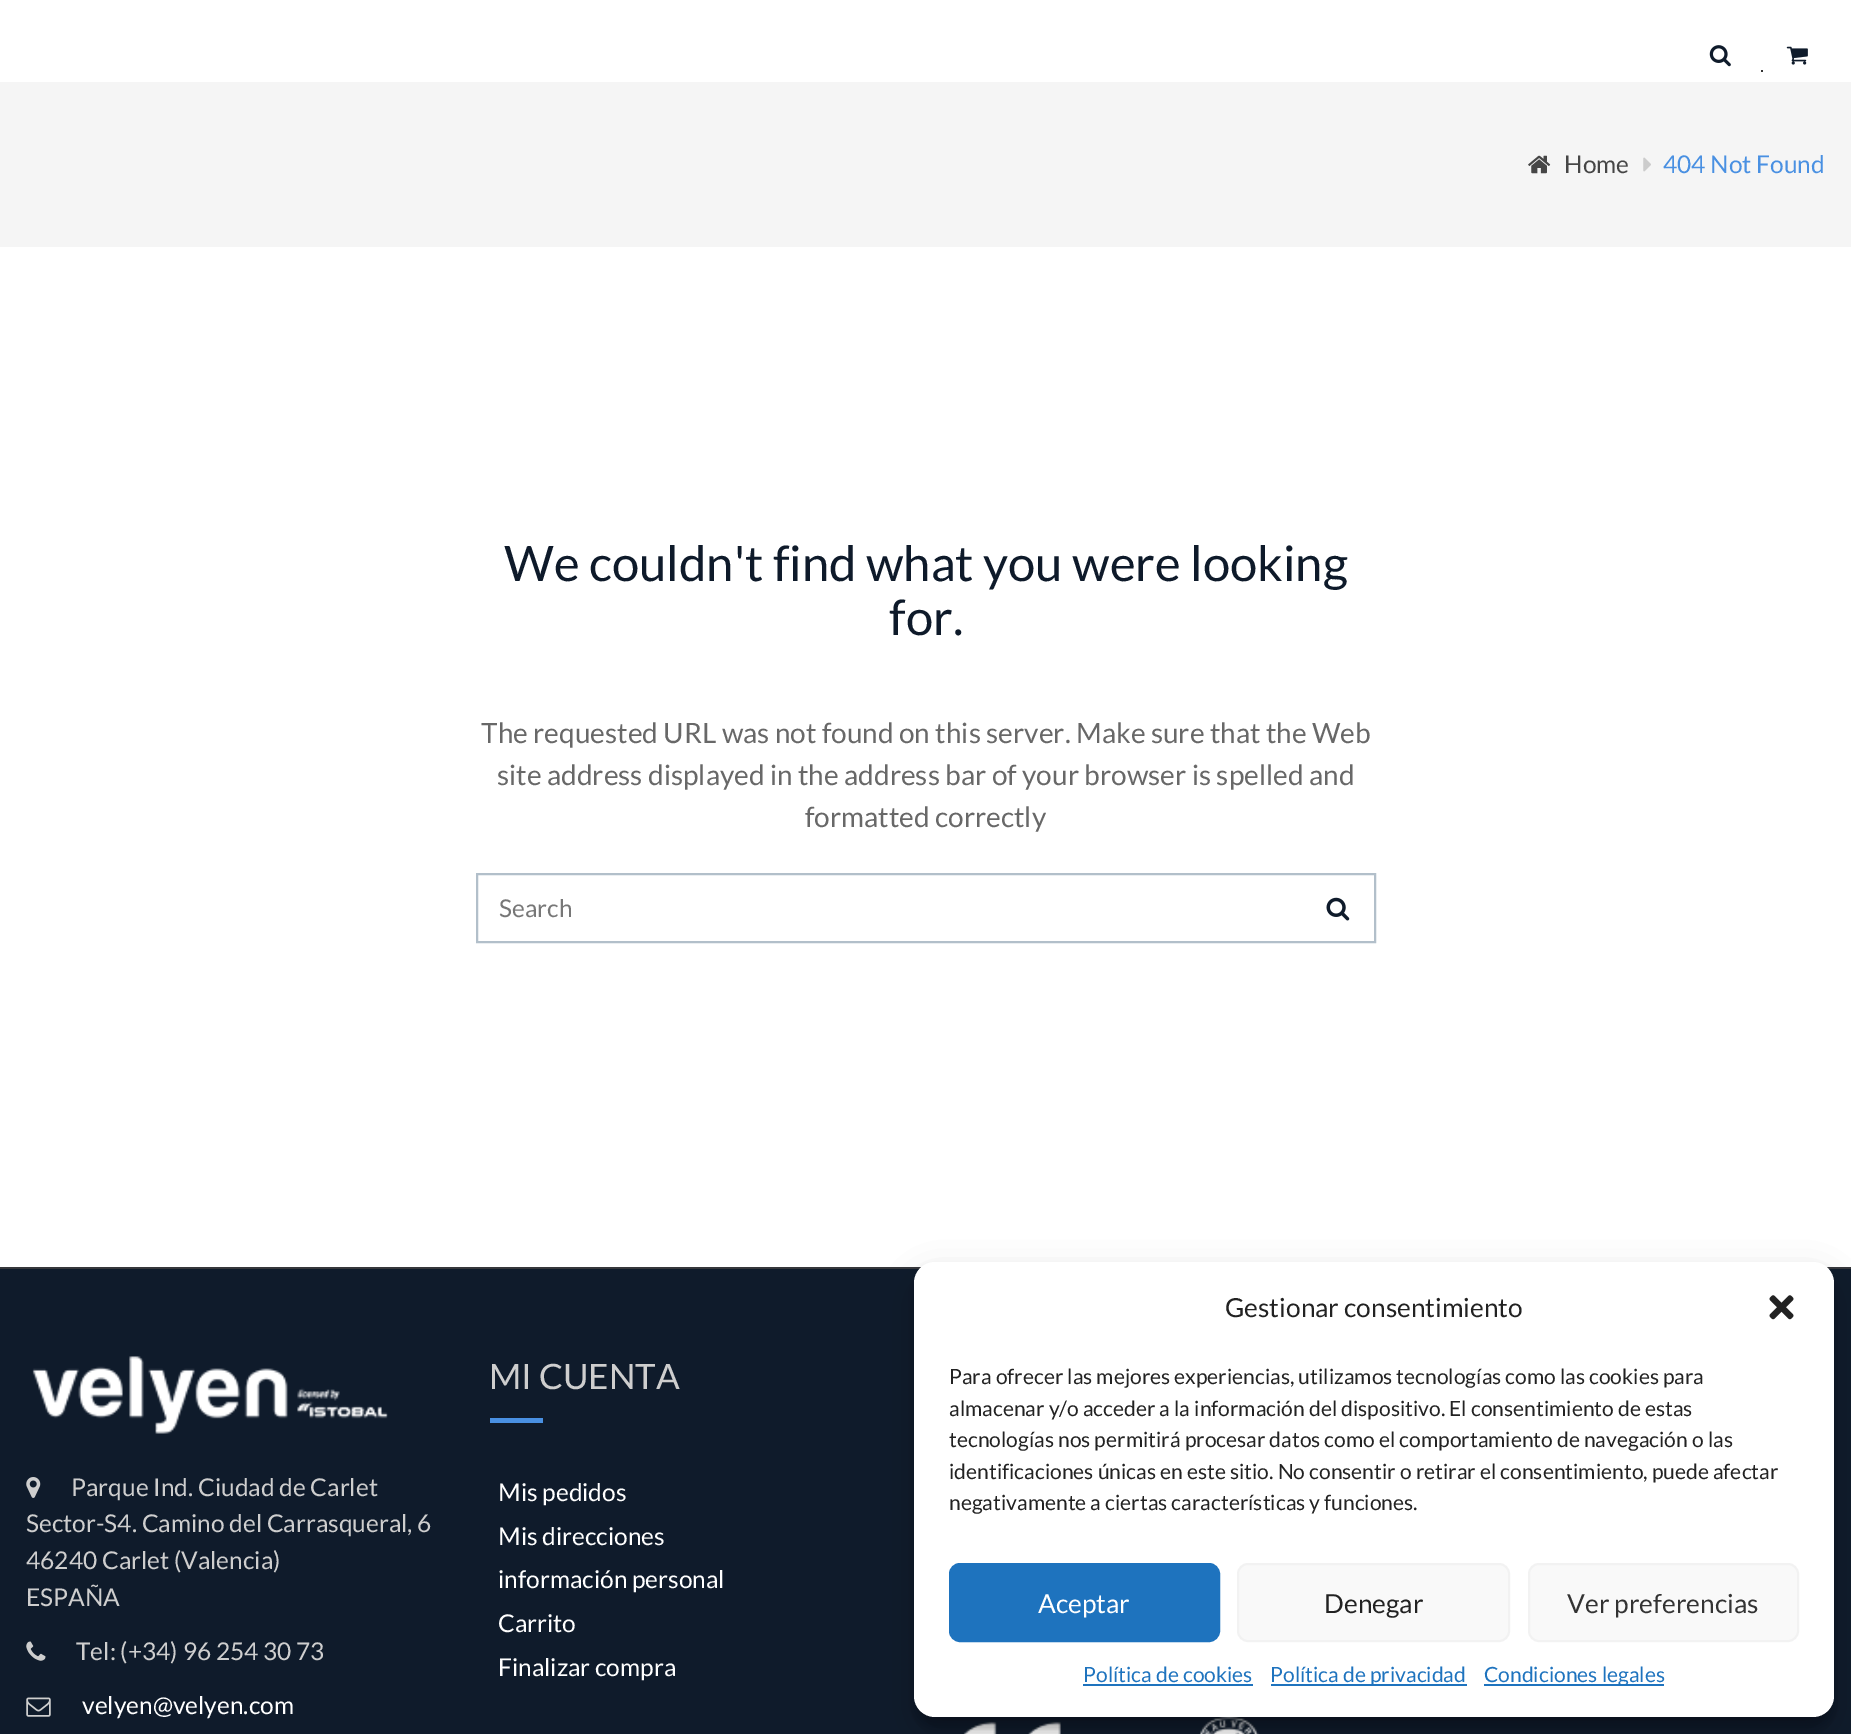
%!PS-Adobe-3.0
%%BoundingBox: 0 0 1851 1734
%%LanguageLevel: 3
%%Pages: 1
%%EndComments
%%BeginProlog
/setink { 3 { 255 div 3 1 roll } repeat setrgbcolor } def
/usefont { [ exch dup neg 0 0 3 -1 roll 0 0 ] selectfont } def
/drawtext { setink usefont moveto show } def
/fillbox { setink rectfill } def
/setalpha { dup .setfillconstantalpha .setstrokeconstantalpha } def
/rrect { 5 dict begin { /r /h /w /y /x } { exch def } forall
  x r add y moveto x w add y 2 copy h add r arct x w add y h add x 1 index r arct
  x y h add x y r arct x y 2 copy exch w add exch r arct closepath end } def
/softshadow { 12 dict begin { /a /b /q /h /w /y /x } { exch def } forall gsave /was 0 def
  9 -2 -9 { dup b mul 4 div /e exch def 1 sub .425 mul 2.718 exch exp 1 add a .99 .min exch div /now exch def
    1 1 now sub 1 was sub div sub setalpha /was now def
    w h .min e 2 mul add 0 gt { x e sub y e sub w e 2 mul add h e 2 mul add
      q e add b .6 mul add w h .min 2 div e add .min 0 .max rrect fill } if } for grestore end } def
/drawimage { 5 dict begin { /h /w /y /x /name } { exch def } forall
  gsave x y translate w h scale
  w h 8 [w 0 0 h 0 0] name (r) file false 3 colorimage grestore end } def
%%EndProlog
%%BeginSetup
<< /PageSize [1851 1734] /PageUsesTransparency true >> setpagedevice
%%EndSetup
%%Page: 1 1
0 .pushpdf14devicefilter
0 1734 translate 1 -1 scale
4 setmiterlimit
0 0 1851 1734 255 255 255 fillbox
(assets/img1.rgb) 1709 45 22 22 drawimage
1761 70 2 2 51 51 51 fillbox
(assets/img2.rgb) 1786 46 22 19 drawimage
0 82 1851 165 245 245 245 fillbox
(assets/img3.rgb) 1528 155 23 19 drawimage
(Home) 1564 173 /Lato-Regular 24.5 70 70 70 drawtext
(assets/img4.rgb) 1643 157 8 15 drawimage
(404 Not Found) 1663 173 /Lato-Regular 24.5 73 144 226 drawtext
(We couldn't find what you were looking) 504 581 /Lato-Regular 49 14 26 42 drawtext
(for.) 889 635 /Lato-Regular 49 14 26 42 drawtext
(The requested URL was not found on this server. Make sure that the Web) 481 743 /Lato-Regular 28 104 104 104 drawtext
(site address displayed in the address bar of your browser is spelled and) 497 785 /Lato-Regular 28 104 104 104 drawtext
(formatted correctly) 805 827 /Lato-Regular 28 104 104 104 drawtext
178 191 202 setink
2 setlinewidth
477 874 898 68 rectstroke
(Search) 499 917 /Lato-Regular 24.5 119 119 119 drawtext
(assets/img5.rgb) 1326 897 24 24 drawimage
0 1269 1851 465 15 27 43 fillbox
0 1267 1851 2 54 55 60 fillbox
(assets/img6.rgb) 32 1356 356 78 drawimage
(assets/img7.rgb) 26 1477 15 21 drawimage
(Parque Ind. Ciudad de Carlet) 71 1496 /Lato-Regular 24.5 206 206 206 drawtext
(Sector-S4. Camino del Carrasqueral, 6) 26 1532 /Lato-Regular 24.5 206 206 206 drawtext
(46240 Carlet \(Valencia\)) 26 1569 /Lato-Regular 24.5 206 206 206 drawtext
(ESPAÑA) 26 1606 /Lato-Regular 24.5 206 206 206 drawtext
(assets/img8.rgb) 26 1641 20 20 drawimage
(Tel: \(+34\) 96 254 30 73) 76 1660 /Lato-Regular 24.5 206 206 206 drawtext
(assets/img9.rgb) 26 1697 25 20 drawimage
(velyen@velyen.com) 82 1714 /Lato-Regular 24.5 255 255 255 drawtext
(MI CUENTA) 489 1389 /Lato-Regular 35 206 206 206 drawtext
490 1418 53 5 73 144 226 fillbox
(Mis pedidos) 498 1501 /Lato-Regular 24.5 255 255 255 drawtext
(Mis direcciones) 498 1545 /Lato-Regular 24.5 255 255 255 drawtext
(información personal) 498 1588 /Lato-Regular 24.5 255 255 255 drawtext
(Carrito) 498 1632 /Lato-Regular 24.5 255 255 255 drawtext
(Finalizar compra) 498 1676 /Lato-Regular 24.5 255 255 255 drawtext
(assets/img10.rgb) 963 1717 296 17 drawimage
0 0 0 setink
914 1272 920 455 21 5 0.23 softshadow
914 1279 920 455 21 17.5 0.19 softshadow
255 255 255 setink
914 1262 920 455 21 rrect fill
(Gestionar consentimiento) 1225 1317 /Lato-Regular 26.25 34 34 34 drawtext
(assets/img11.rgb) 1769 1295 25 25 drawimage
(Para ofrecer las mejores experiencias, utilizamos tecnologías como las cookies para) 949 1384 /Lato-Regular 21 34 34 34 drawtext
(almacenar y/o acceder a la información del dispositivo. El consentimiento de estas) 949 1416 /Lato-Regular 21 34 34 34 drawtext
(tecnologías nos permitirá procesar datos como el comportamiento de navegación o las) 949 1447 /Lato-Regular 21 34 34 34 drawtext
(identificaciones únicas en este sitio. No consentir o retirar el consentimiento, puede afectar) 949 1479 /Lato-Regular 21 34 34 34 drawtext
(negativamente a ciertas características y funciones.) 949 1510 /Lato-Regular 21 34 34 34 drawtext
30 115 190 setink
950 1564 269 77 10 rrect gsave fill grestore
stroke
(Aceptar) 1038 1613 /Lato-Regular 26.25 255 255 255 drawtext
249 249 249 setink
1238 1564 271 77 10 rrect gsave fill grestore
242 242 242 setink
stroke
(Denegar) 1324 1613 /Lato-Regular 26.25 34 34 34 drawtext
249 249 249 setink
1529 1564 269 77 10 rrect gsave fill grestore
242 242 242 setink
stroke
(Ver preferencias) 1567 1613 /Lato-Regular 26.25 51 51 51 drawtext
(Política de cookies) 1083 1682 /Lato-Regular 21 30 115 190 drawtext
1083 1684 170 2 30 115 190 fillbox
1271 1684 196 2 30 115 190 fillbox
(Política de privacidad) 1270 1682 /Lato-Regular 21 30 115 190 drawtext
1484 1684 180 2 30 115 190 fillbox
(Condiciones legales) 1484 1682 /Lato-Regular 21 30 115 190 drawtext
.poppdf14devicefilter showpage
%%EOF
